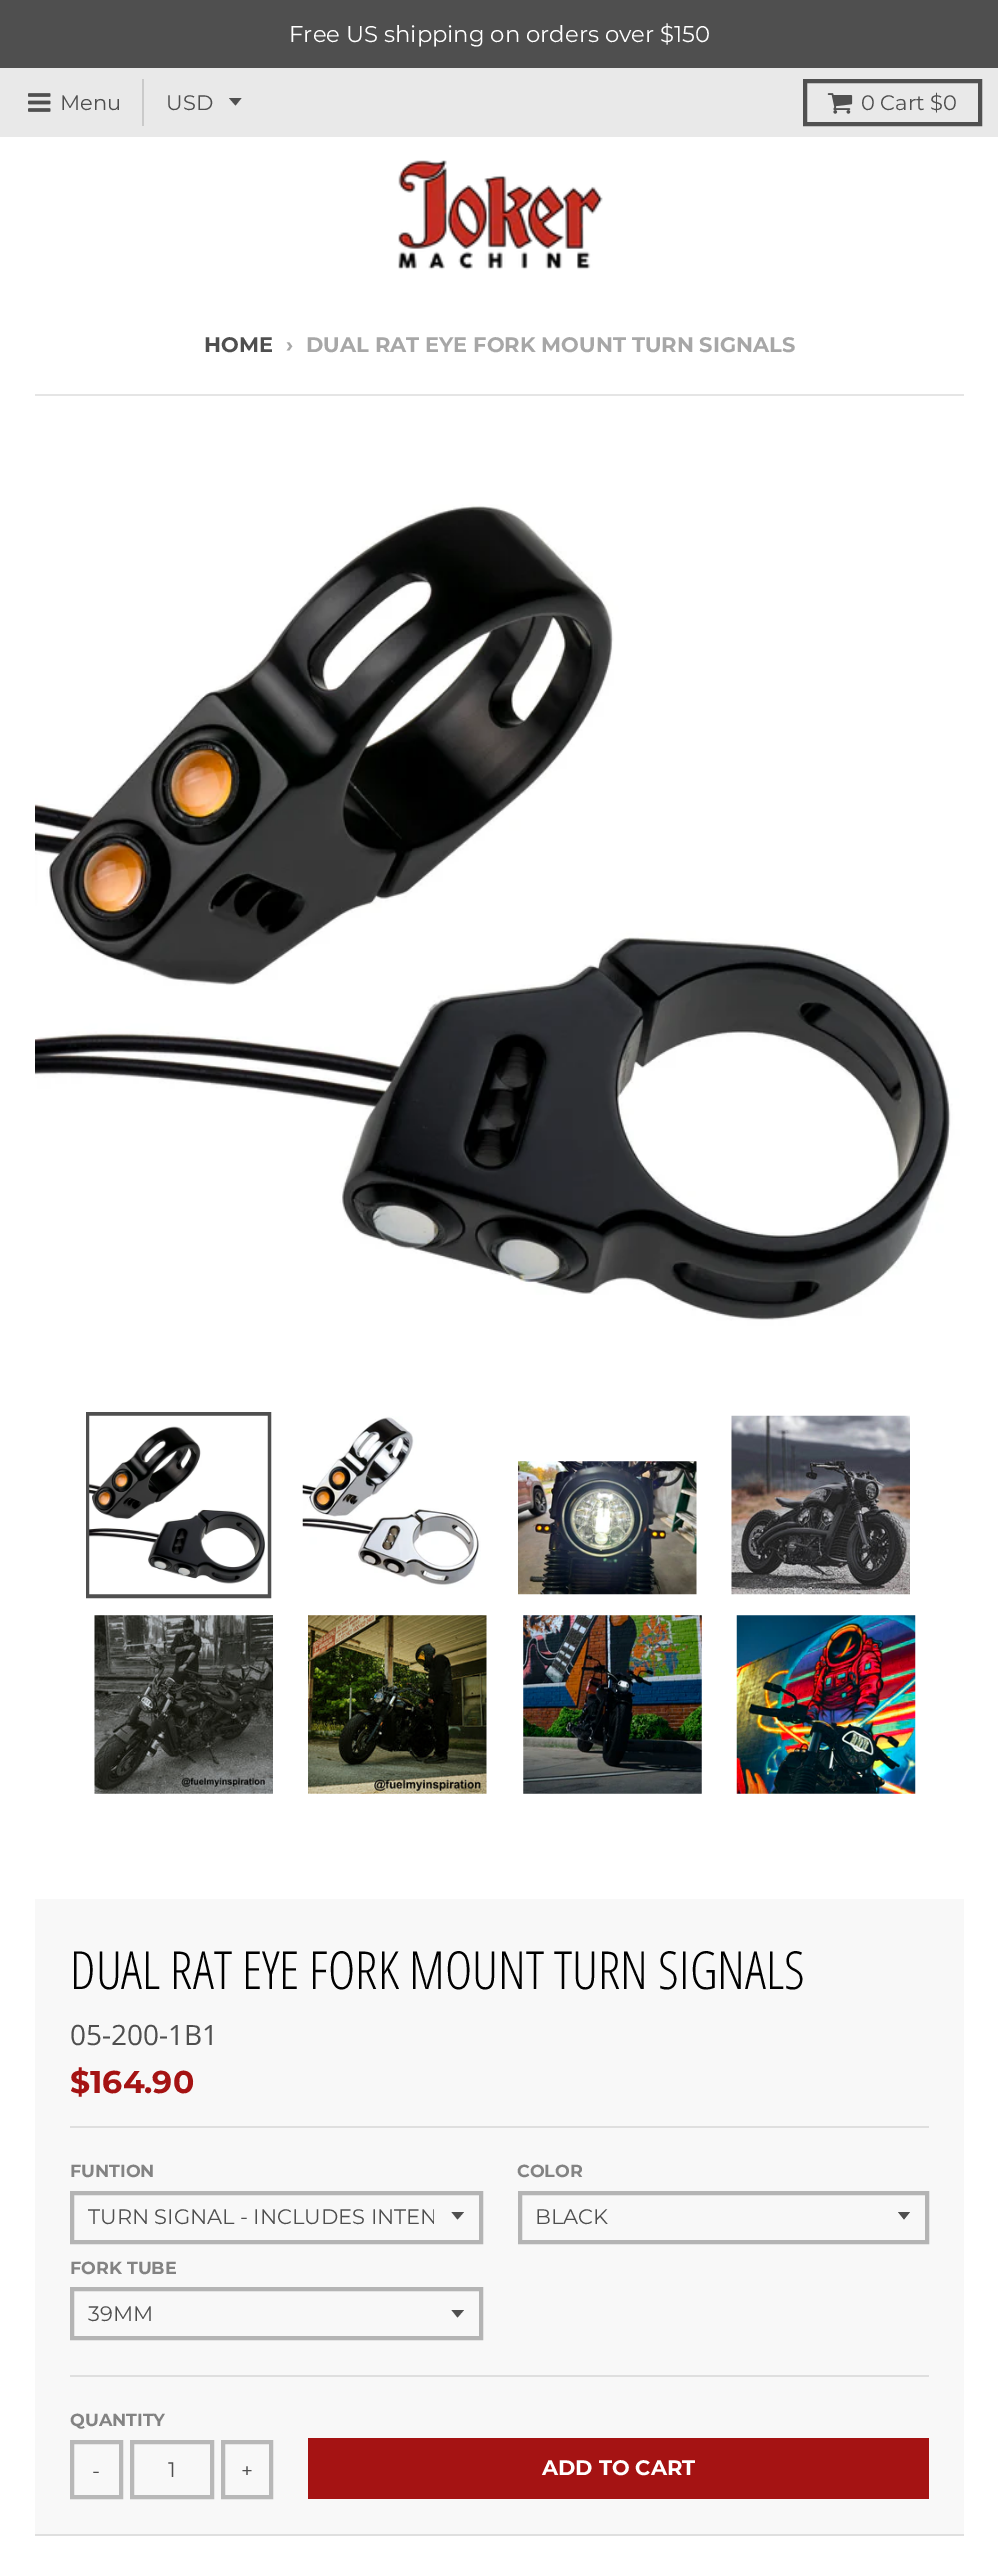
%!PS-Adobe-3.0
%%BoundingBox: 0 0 998 2573
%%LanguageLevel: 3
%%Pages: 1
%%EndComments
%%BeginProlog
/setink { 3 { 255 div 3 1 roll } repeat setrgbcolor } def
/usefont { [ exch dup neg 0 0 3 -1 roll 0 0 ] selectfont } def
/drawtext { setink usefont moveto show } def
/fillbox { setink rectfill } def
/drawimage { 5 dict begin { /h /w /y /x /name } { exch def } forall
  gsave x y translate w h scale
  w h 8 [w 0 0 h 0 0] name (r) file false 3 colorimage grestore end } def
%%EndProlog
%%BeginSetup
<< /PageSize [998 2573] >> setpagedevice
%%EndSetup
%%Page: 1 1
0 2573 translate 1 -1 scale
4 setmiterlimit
0 0 998 2573 255 255 255 fillbox
0 0 998 68 79 79 79 fillbox
(Free US shipping on orders over $150) 289 42 /Montserrat-Regular 22.75 255 255 255 drawtext
0 68 998 69 233 233 233 fillbox
142 79 2 47 202 202 202 fillbox
(assets/img1.rgb) 28 93 23 19 drawimage
(Menu) 60 110 /Montserrat-Regular 21 79 79 79 drawtext
80 80 80 setink
229 98 moveto 235.5 105.5 lineto 241.5 98 lineto closepath fill
(USD) 166 110 /Montserrat-Regular 21 79 79 79 drawtext
80 80 80 setink
4 setlinewidth
805 81 175 43 rectstroke
(assets/img2.rgb) 827 93 26 21 drawimage
(0 Cart $0) 861 110 /Montserrat-Regular 21 79 79 79 drawtext
(assets/img3.rgb) 398 160 205 110 drawimage
(HOME) 204 352 /Montserrat-Bold 21 79 79 79 drawtext
(›) 286 352 /Montserrat-Bold 21 167 167 167 drawtext
(DUAL RAT EYE FORK MOUNT TURN SIGNALS) 306 352 /Montserrat-Bold 21 167 167 167 drawtext
35 394 929 2 229 229 229 fillbox
(assets/img4.rgb) 35 448 929 929 drawimage
79 79 79 setink
88 1414 181 182 rectstroke
(assets/img5.rgb) 89 1415 179 180 drawimage
(assets/img6.rgb) 302 1416 179 178 drawimage
(assets/img7.rgb) 518 1461 179 134 drawimage
(assets/img8.rgb) 731 1415 179 180 drawimage
(assets/img9.rgb) 94 1615 179 179 drawimage
(assets/img10.rgb) 308 1615 179 179 drawimage
(assets/img11.rgb) 523 1615 179 179 drawimage
(assets/img12.rgb) 736 1615 180 179 drawimage
35 1899 929 635 248 248 248 fillbox
35 2534 929 2 223 223 223 fillbox
(DUAL RAT EYE FORK MOUNT TURN SIGNALS) 70 1989 /OpenSansCondensed-Light 52.5 0 0 0 drawtext
(05-200-1B1) 70 2045 /OpenSans-Regular 28 79 79 79 drawtext
70 2126 859 2 223 223 223 fillbox
($164.90) 70 2093 /Montserrat-Bold 31.5 165 19 19 drawtext
70 2375 859 2 223 223 223 fillbox
(FUNTION) 70 2177 /Montserrat-Bold 17.5 131 131 131 drawtext
79 79 79 setink
451.5 2212 moveto 457.5 2219.5 lineto 464 2212 lineto closepath fill
180 180 180 setink
72 2193 409 49 rectstroke
gsave
88 2200 346 33 rectclip
(TURN SIGNAL - INCLUDES INTEN) 88 2224 /Montserrat-Regular 21 79 79 79 drawtext
grestore
(COLOR) 517 2177 /Montserrat-Bold 17.5 131 131 131 drawtext
79 79 79 setink
898 2212 moveto 904 2219.5 lineto 910 2212 lineto closepath fill
180 180 180 setink
520 2193 407 49 rectstroke
(BLACK) 535 2224 /Montserrat-Regular 21 79 79 79 drawtext
(FORK TUBE) 70 2274 /Montserrat-Bold 17.5 131 131 131 drawtext
79 79 79 setink
451.5 2310 moveto 457.5 2317.5 lineto 464 2310 lineto closepath fill
180 180 180 setink
72 2289 409 49 rectstroke
(39MM) 88 2321 /Montserrat-Regular 21 79 79 79 drawtext
(QUANTITY) 70 2426 /Montserrat-Bold 17.5 131 131 131 drawtext
184 184 184 setink
72 2442 49 55 rectstroke
(-) 92 2478 /Montserrat-Regular 21 79 79 79 drawtext
184 184 184 setink
132 2442 80 55 rectstroke
(1) 168 2477 /Montserrat-Regular 21 79 79 79 drawtext
184 184 184 setink
223 2442 48 55 rectstroke
(+) 241 2478 /Montserrat-Regular 21 79 79 79 drawtext
308 2438 621 61 165 19 19 fillbox
(ADD TO CART) 542 2475 /Montserrat-Bold 21 255 255 255 drawtext
showpage
%%EOF
